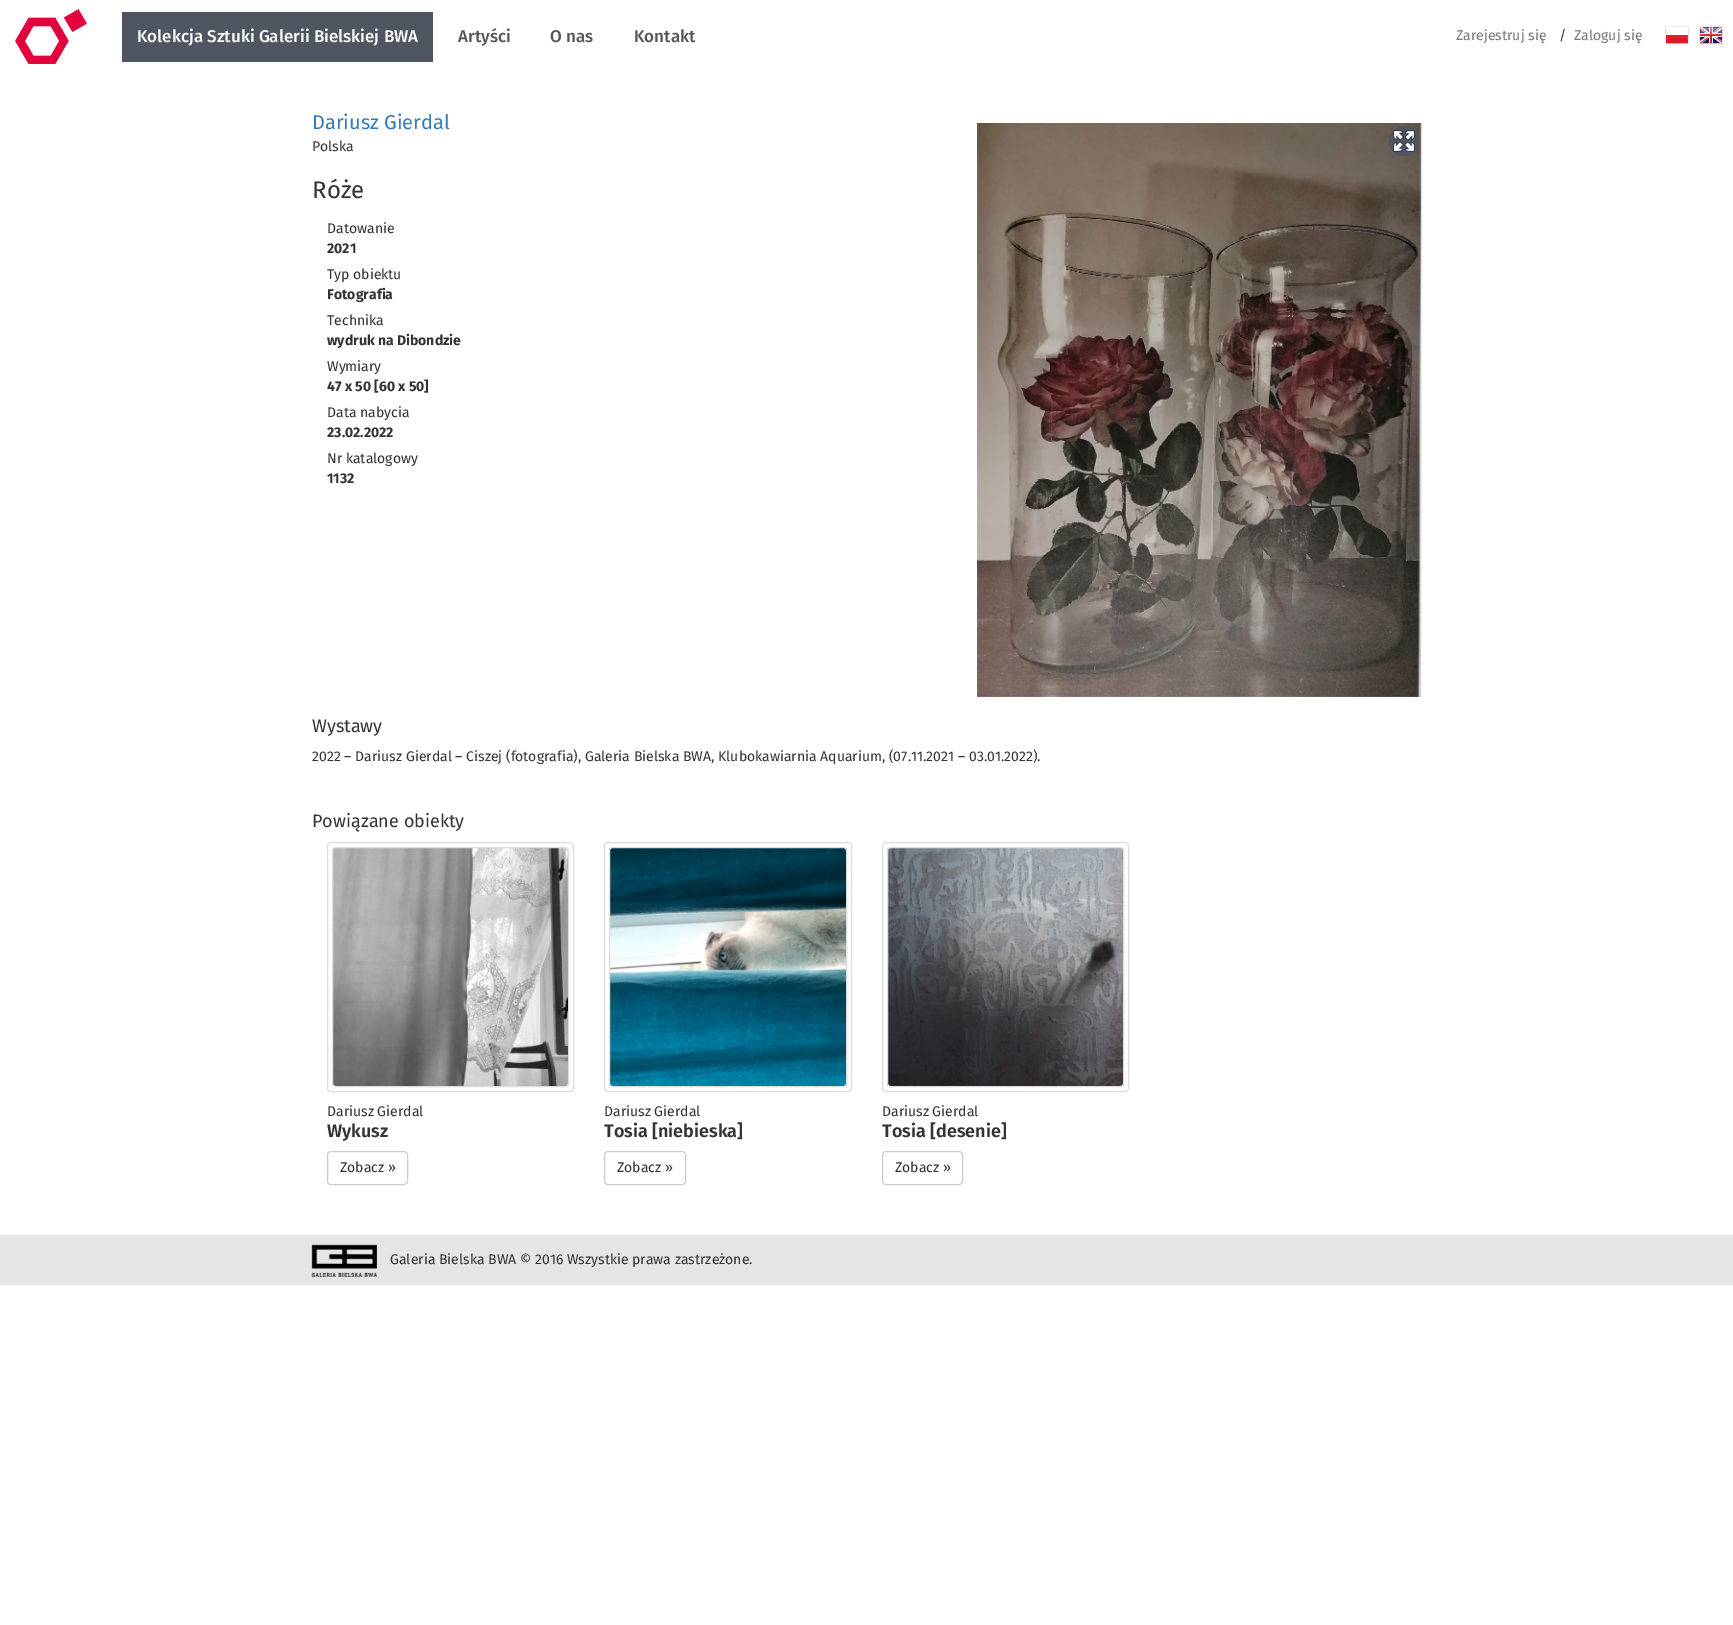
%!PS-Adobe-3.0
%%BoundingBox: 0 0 1733 1625
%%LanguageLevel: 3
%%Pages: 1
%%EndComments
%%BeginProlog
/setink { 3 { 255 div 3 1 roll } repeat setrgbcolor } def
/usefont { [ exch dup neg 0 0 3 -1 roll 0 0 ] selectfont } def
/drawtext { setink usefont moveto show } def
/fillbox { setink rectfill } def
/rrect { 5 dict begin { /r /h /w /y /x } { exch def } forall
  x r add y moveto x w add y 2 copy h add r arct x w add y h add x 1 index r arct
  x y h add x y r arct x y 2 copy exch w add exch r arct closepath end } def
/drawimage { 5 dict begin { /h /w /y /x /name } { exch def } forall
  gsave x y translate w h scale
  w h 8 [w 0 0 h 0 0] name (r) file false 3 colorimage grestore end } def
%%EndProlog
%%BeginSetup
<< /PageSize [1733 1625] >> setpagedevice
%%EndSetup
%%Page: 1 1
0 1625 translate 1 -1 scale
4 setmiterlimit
0 0 1733 1625 255 255 255 fillbox
(assets/img1.rgb) 15 9 72 55 drawimage
122 12 311 50 79 85 97 fillbox
(Kolekcja Sztuki Galerii Bielskiej BWA) 137 42 /FiraSans-Medium 17 255 255 255 drawtext
(Artyści) 458 42 /FiraSans-Medium 17 85 85 85 drawtext
(O nas) 550 42 /FiraSans-Medium 17 85 85 85 drawtext
(Kontakt) 634 42 /FiraSans-Medium 17 85 85 85 drawtext
(Zarejestruj się) 1456 40 /FiraSans-Regular 14 119 119 119 drawtext
(/) 1559 40 /FiraSans-Regular 14 51 51 51 drawtext
(Zaloguj się) 1574 40 /FiraSans-Regular 14 119 119 119 drawtext
(assets/img2.rgb) 1665 26 24 19 drawimage
(assets/img3.rgb) 1699 26 24 19 drawimage
(Dariusz Gierdal) 312 129 /FiraSans-Regular 20 51 122 183 drawtext
(Polska) 312 151 /FiraSans-Regular 14 51 51 51 drawtext
(Róże) 312 198 /FiraSans-Regular 24 51 51 51 drawtext
(Datowanie) 327 233 /FiraSans-Regular 14 51 51 51 drawtext
(2021) 327 253 /FiraSans-Bold 14 51 51 51 drawtext
(Typ obiektu) 327 279 /FiraSans-Regular 14 51 51 51 drawtext
(Fotografia) 327 299 /FiraSans-Bold 14 51 51 51 drawtext
(Technika) 327 325 /FiraSans-Regular 14 51 51 51 drawtext
(wydruk na Dibondzie) 327 345 /FiraSans-Bold 14 51 51 51 drawtext
(Wymiary) 327 371 /FiraSans-Regular 14 51 51 51 drawtext
(47 x 50 [60 x 50]) 327 391 /FiraSans-Bold 14 51 51 51 drawtext
(Data nabycia) 327 417 /FiraSans-Regular 14 51 51 51 drawtext
(23.02.2022) 327 437 /FiraSans-Bold 14 51 51 51 drawtext
(Nr katalogowy) 327 463 /FiraSans-Regular 14 51 51 51 drawtext
(1132) 327 483 /FiraSans-Bold 14 51 51 51 drawtext
(assets/img4.rgb) 977 123 445 574 drawimage
(assets/img5.rgb) 1389 126 30 30 drawimage
(Wystawy) 312 732 /FiraSans-Regular 18 51 51 51 drawtext
(2022 – Dariusz Gierdal – Ciszej \(fotografia\), Galeria Bielska BWA, Klubokawiarnia Aquarium, \(07.11.2021 – 03.01.2022\).) 312 761 /FiraSans-Regular 14 51 51 51 drawtext
(Powiązane obiekty) 312 827 /FiraSans-Regular 18 51 51 51 drawtext
221 221 221 setink
327.5 842.5 246 249 3.5 rrect stroke
(assets/img6.rgb) 332 848 237 238 drawimage
332.5 847.5 236 239 3.5 rrect stroke
(Dariusz Gierdal) 327 1116 /FiraSans-Regular 14 51 51 51 drawtext
(Wykusz) 327 1137 /FiraSans-SemiBold 18 51 51 51 drawtext
204 204 204 setink
327.5 1151.5 80 33 3.5 rrect stroke
(Zobacz ») 340 1172 /FiraSans-Regular 14 51 51 51 drawtext
221 221 221 setink
604.5 842.5 247 249 3.5 rrect stroke
(assets/img7.rgb) 609 848 238 238 drawimage
609.5 847.5 237 239 3.5 rrect stroke
(Dariusz Gierdal) 604 1116 /FiraSans-Regular 14 51 51 51 drawtext
(Tosia [niebieska]) 604 1137 /FiraSans-SemiBold 18 51 51 51 drawtext
204 204 204 setink
604.5 1151.5 81 33 3.5 rrect stroke
(Zobacz ») 617 1172 /FiraSans-Regular 14 51 51 51 drawtext
221 221 221 setink
882.5 842.5 246 249 3.5 rrect stroke
(assets/img8.rgb) 887 848 237 238 drawimage
887.5 847.5 236 239 3.5 rrect stroke
(Dariusz Gierdal) 882 1116 /FiraSans-Regular 14 51 51 51 drawtext
(Tosia [desenie]) 882 1137 /FiraSans-SemiBold 18 51 51 51 drawtext
204 204 204 setink
882.5 1151.5 80 33 3.5 rrect stroke
(Zobacz ») 895 1172 /FiraSans-Regular 14 51 51 51 drawtext
0 1235 1733 50 229 229 229 fillbox
(assets/img9.rgb) 311 1244 66 33 drawimage
(Galeria Bielska BWA © 2016 Wszystkie prawa zastrzeżone.) 390 1264 /FiraSans-Regular 14 51 51 51 drawtext
showpage
%%EOF
